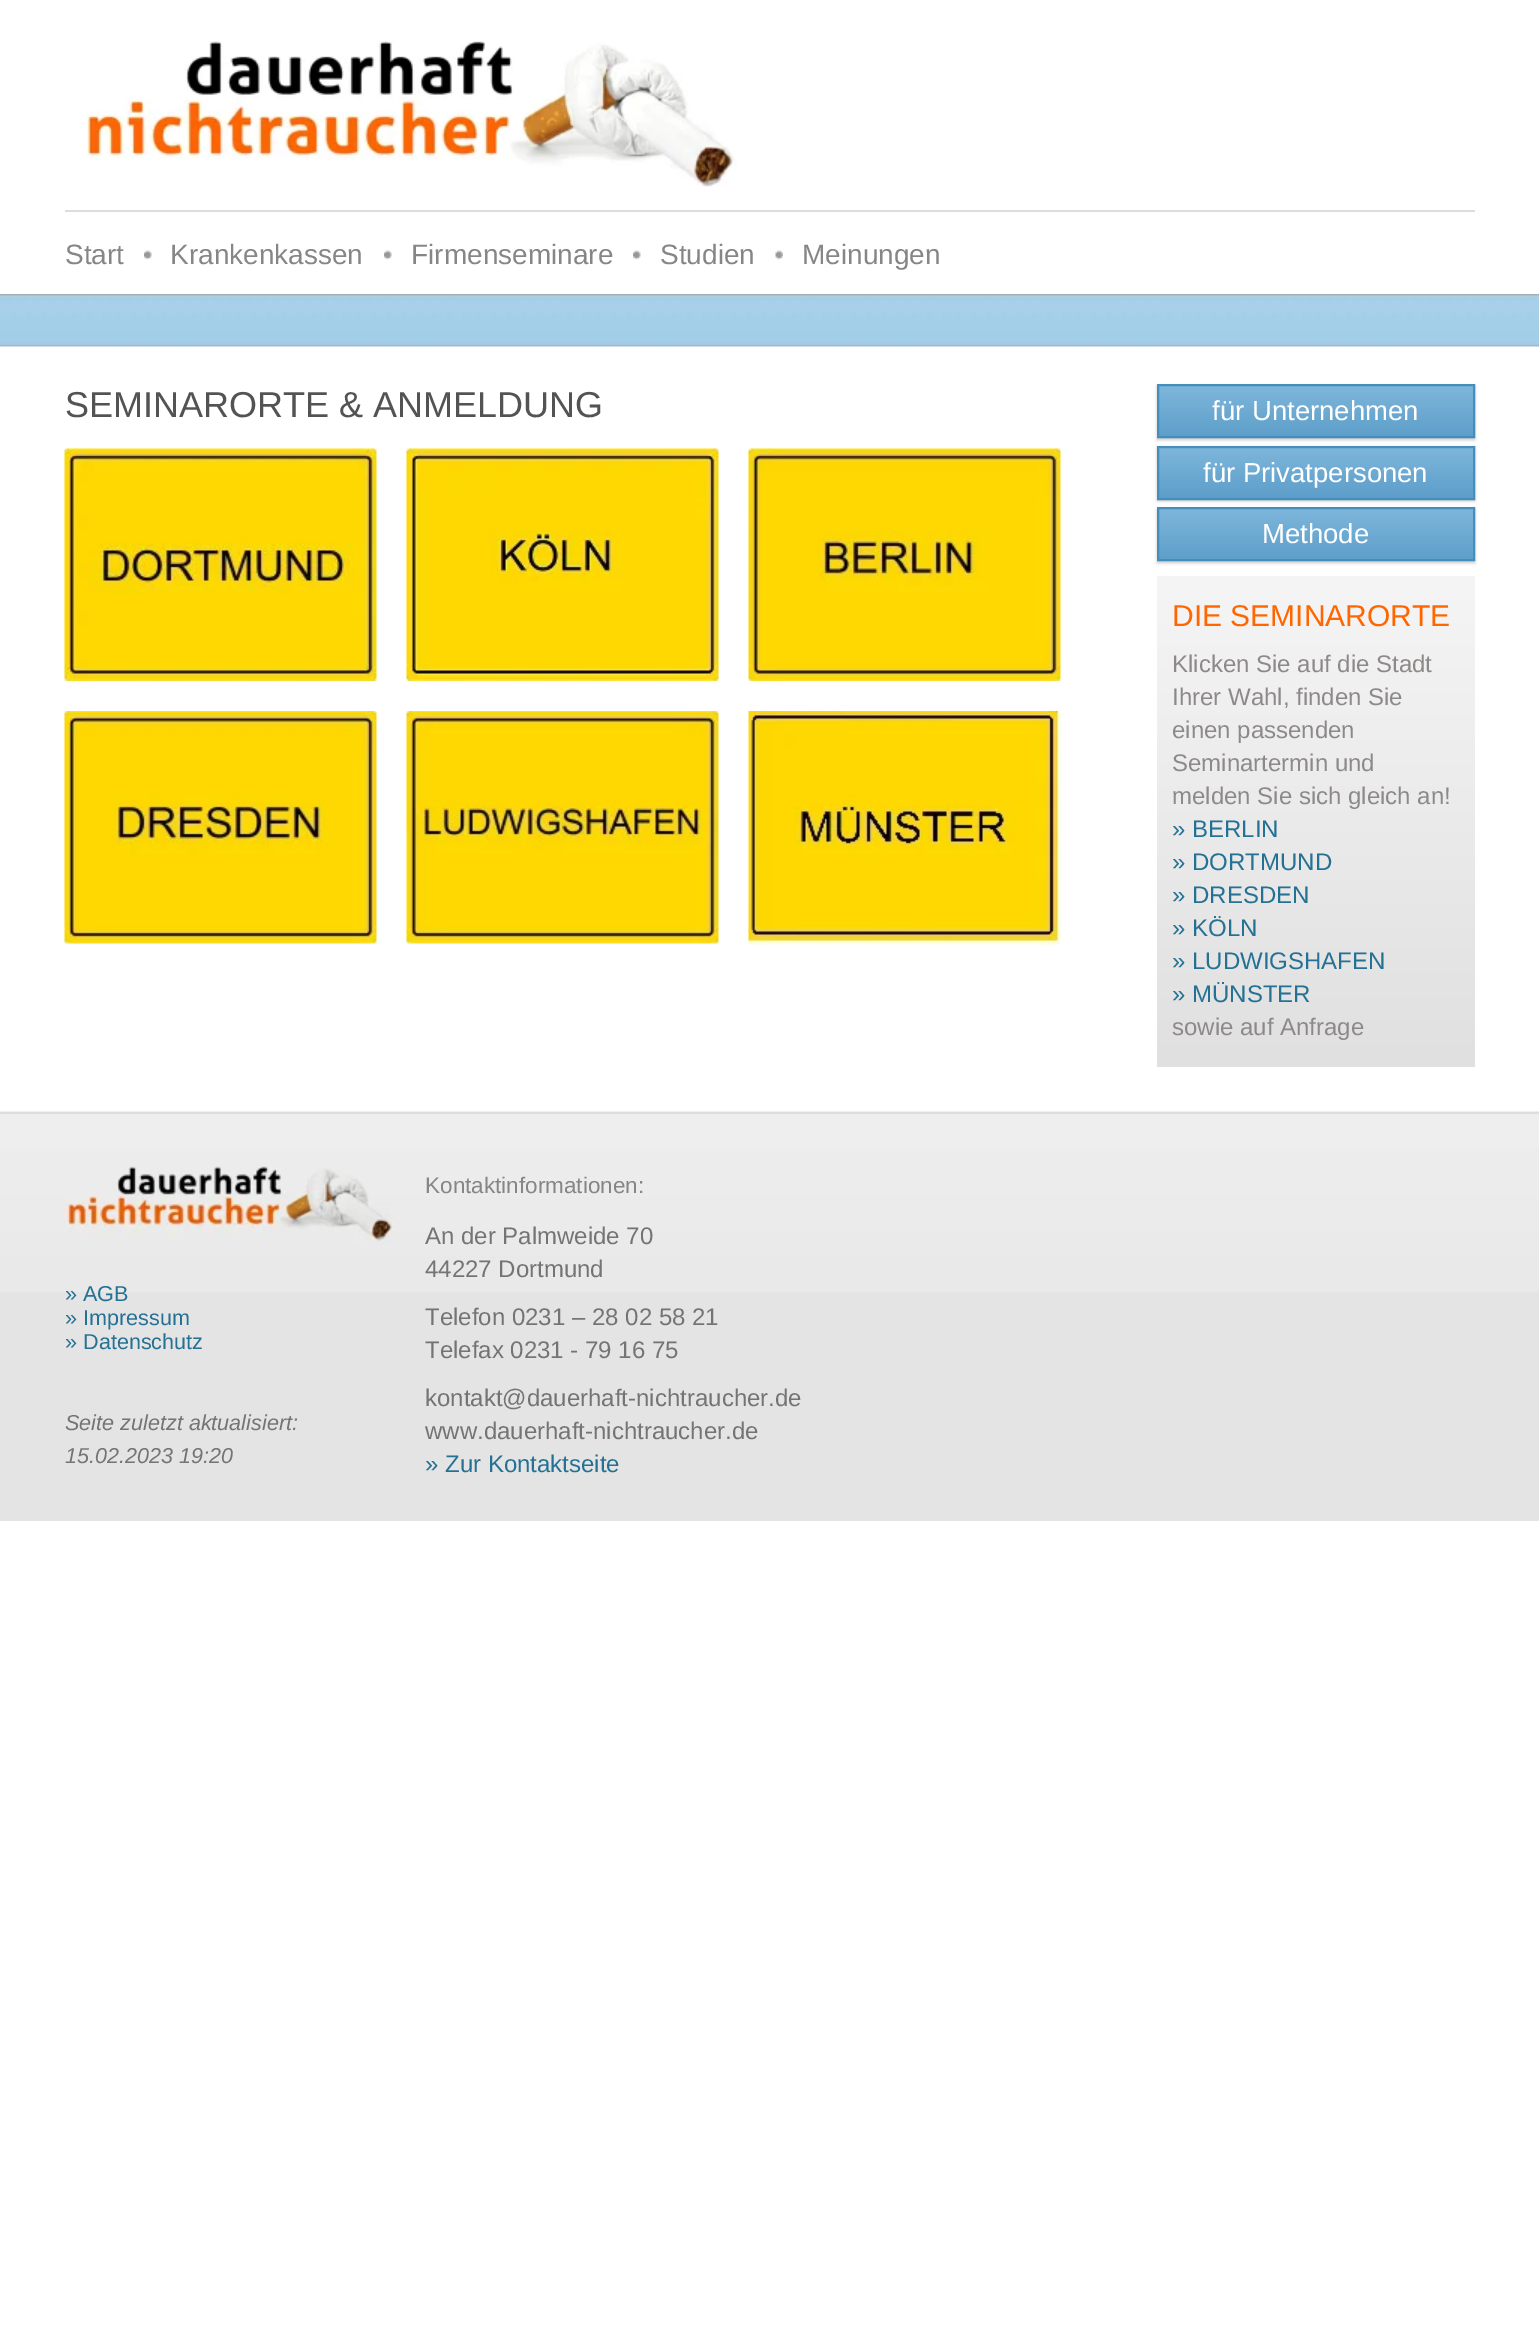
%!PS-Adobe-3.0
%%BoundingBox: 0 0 1539 2340
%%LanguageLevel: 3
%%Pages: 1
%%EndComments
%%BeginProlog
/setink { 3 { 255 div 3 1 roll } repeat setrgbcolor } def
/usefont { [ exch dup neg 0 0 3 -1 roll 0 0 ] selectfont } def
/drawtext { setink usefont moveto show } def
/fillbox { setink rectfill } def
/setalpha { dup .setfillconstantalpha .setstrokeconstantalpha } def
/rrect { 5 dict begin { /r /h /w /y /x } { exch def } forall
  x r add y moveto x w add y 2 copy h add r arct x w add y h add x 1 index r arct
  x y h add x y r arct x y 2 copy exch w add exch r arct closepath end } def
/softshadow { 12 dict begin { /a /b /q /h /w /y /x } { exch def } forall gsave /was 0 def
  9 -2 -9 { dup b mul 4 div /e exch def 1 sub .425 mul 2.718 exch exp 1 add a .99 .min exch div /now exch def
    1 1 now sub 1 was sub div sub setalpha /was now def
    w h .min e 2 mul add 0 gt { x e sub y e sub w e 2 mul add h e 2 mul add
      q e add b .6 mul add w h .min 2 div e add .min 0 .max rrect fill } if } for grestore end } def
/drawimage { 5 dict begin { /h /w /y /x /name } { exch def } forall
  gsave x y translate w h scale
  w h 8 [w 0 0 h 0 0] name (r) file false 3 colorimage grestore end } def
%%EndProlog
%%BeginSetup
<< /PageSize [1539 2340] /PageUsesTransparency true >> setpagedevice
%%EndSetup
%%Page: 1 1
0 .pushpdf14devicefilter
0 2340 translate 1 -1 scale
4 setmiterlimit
0 0 1539 2340 255 255 255 fillbox
(assets/img1.rgb) 0 294 1539 53 drawimage
(assets/img2.rgb) 87 41 650 146 drawimage
65 210 1410 2 221 221 221 fillbox
(assets/img3.rgb) 144 250 8 10 drawimage
(Start) 65 264 /LiberationSans-Regular 28 134 134 134 drawtext
(assets/img4.rgb) 384 250 8 10 drawimage
(Krankenkassen) 170 264 /LiberationSans-Regular 28 134 134 134 drawtext
(assets/img3.rgb) 633 250 8 10 drawimage
(Firmenseminare) 411 264 /LiberationSans-Regular 28 134 134 134 drawtext
(assets/img5.rgb) 775 250 8 10 drawimage
(Studien) 660 264 /LiberationSans-Regular 28 134 134 134 drawtext
(Meinungen) 802 264 /LiberationSans-Regular 28 134 134 134 drawtext
(SEMINARORTE & ANMELDUNG) 65 417 /LiberationSans-Regular 36 83 83 83 drawtext
(assets/img6.rgb) 64 448 313 233 drawimage
(assets/img7.rgb) 406 448 313 233 drawimage
(assets/img8.rgb) 748 448 313 233 drawimage
(assets/img9.rgb) 64 711 313 233 drawimage
(assets/img10.rgb) 406 711 313 233 drawimage
(assets/img11.rgb) 748 711 313 234 drawimage
0 0 0 setink
1157 386 318 54 0 1.5 0.2 softshadow
gsave 1159 386 moveto 1473 386 lineto 1473 436 lineto 1159 436 lineto closepath clip newpath
<< /ShadingType 2 /ColorSpace /DeviceRGB /Coords [1316 386 1316 437] /Extend [true true] /Function << /FunctionType 2 /Domain [0 1] /C0 [0.494 0.714 0.859] /C1 [0.365 0.62 0.792] /N 1 >> >> shfill grestore
69 142 187 setink
2 setlinewidth
1158 385 316 52 rectstroke
(für Unternehmen) 1212 420 /LiberationSans-Regular 27.5 255 255 255 drawtext
0 0 0 setink
1157 447 318 54 0 1.5 0.2 softshadow
gsave 1159 448 moveto 1473 448 lineto 1473 498 lineto 1159 498 lineto closepath clip newpath
<< /ShadingType 2 /ColorSpace /DeviceRGB /Coords [1316 447 1316 498] /Extend [true true] /Function << /FunctionType 2 /Domain [0 1] /C0 [0.494 0.714 0.859] /C1 [0.365 0.62 0.792] /N 1 >> >> shfill grestore
69 142 187 setink
1158 447 316 52 rectstroke
(für Privatpersonen) 1203 482 /LiberationSans-Regular 27.5 255 255 255 drawtext
0 0 0 setink
1157 509 318 54 0 1.5 0.2 softshadow
gsave 1159 509 moveto 1473 509 lineto 1473 559 lineto 1159 559 lineto closepath clip newpath
<< /ShadingType 2 /ColorSpace /DeviceRGB /Coords [1316 509 1316 560] /Extend [true true] /Function << /FunctionType 2 /Domain [0 1] /C0 [0.494 0.714 0.859] /C1 [0.365 0.62 0.792] /N 1 >> >> shfill grestore
69 142 187 setink
1158 508 316 52 rectstroke
(Methode) 1262 543 /LiberationSans-Regular 27.5 255 255 255 drawtext
gsave 1157 576 moveto 1475 576 lineto 1475 1067 lineto 1157 1067 lineto closepath clip newpath
<< /ShadingType 2 /ColorSpace /DeviceRGB /Coords [1316 576 1316 1067] /Extend [true true] /Function << /FunctionType 2 /Domain [0 1] /C0 [0.961 0.961 0.961] /C1 [0.878 0.878 0.878] /N 1 >> >> shfill grestore
(DIE SEMINARORTE) 1172 626 /LiberationSans-Regular 30 255 102 0 drawtext
(Klicken Sie auf die Stadt) 1172 672 /LiberationSans-Regular 24 141 137 137 drawtext
(Ihrer Wahl, finden Sie) 1172 705 /LiberationSans-Regular 24 141 137 137 drawtext
(einen passenden) 1172 738 /LiberationSans-Regular 24 141 137 137 drawtext
(Seminartermin und) 1172 771 /LiberationSans-Regular 24 141 137 137 drawtext
(melden Sie sich gleich an!) 1172 804 /LiberationSans-Regular 24 141 137 137 drawtext
(» BERLIN) 1172 837 /LiberationSans-Regular 24 37 113 147 drawtext
(» DORTMUND) 1172 870 /LiberationSans-Regular 24 37 113 147 drawtext
(» DRESDEN) 1172 903 /LiberationSans-Regular 24 37 113 147 drawtext
(» KÖLN) 1172 936 /LiberationSans-Regular 24 37 113 147 drawtext
(» LUDWIGSHAFEN) 1172 969 /LiberationSans-Regular 24 37 113 147 drawtext
(» MÜNSTER) 1172 1002 /LiberationSans-Regular 24 37 113 147 drawtext
(sowie auf Anfrage) 1172 1035 /LiberationSans-Regular 24 141 137 137 drawtext
0 1292 1539 229 228 228 228 fillbox
(assets/img12.rgb) 0 1111 1539 181 drawimage
0 1112 1539 2 222 221 221 fillbox
(assets/img13.rgb) 64 1166 331 77 drawimage
(» AGB) 65 1301 /LiberationSans-Regular 21.6 37 113 147 drawtext
(» Impressum) 65 1325 /LiberationSans-Regular 21.6 37 113 147 drawtext
(» Datenschutz) 65 1349 /LiberationSans-Regular 21.6 37 113 147 drawtext
(Seite zuletzt aktualisiert:) 65 1430 /LiberationSans-Italic 21.6 116 116 116 drawtext
(15.02.2023 19:20) 65 1463 /LiberationSans-Italic 21.6 116 116 116 drawtext
(Kontaktinformationen:) 425 1193 /LiberationSans-Regular 22.5 134 134 134 drawtext
(An der Palmweide 70) 425 1244 /LiberationSans-Regular 24 116 116 116 drawtext
(44227 Dortmund) 425 1277 /LiberationSans-Regular 24 116 116 116 drawtext
(Telefon 0231 – 28 02 58 21) 425 1325 /LiberationSans-Regular 24 116 116 116 drawtext
(Telefax 0231 - 79 16 75) 425 1358 /LiberationSans-Regular 24 116 116 116 drawtext
(kontakt@dauerhaft-nichtraucher.de) 425 1406 /LiberationSans-Regular 24 116 116 116 drawtext
(www.dauerhaft-nichtraucher.de) 425 1439 /LiberationSans-Regular 24 116 116 116 drawtext
(» Zur Kontaktseite) 425 1472 /LiberationSans-Regular 24 37 113 147 drawtext
.poppdf14devicefilter showpage
%%EOF
